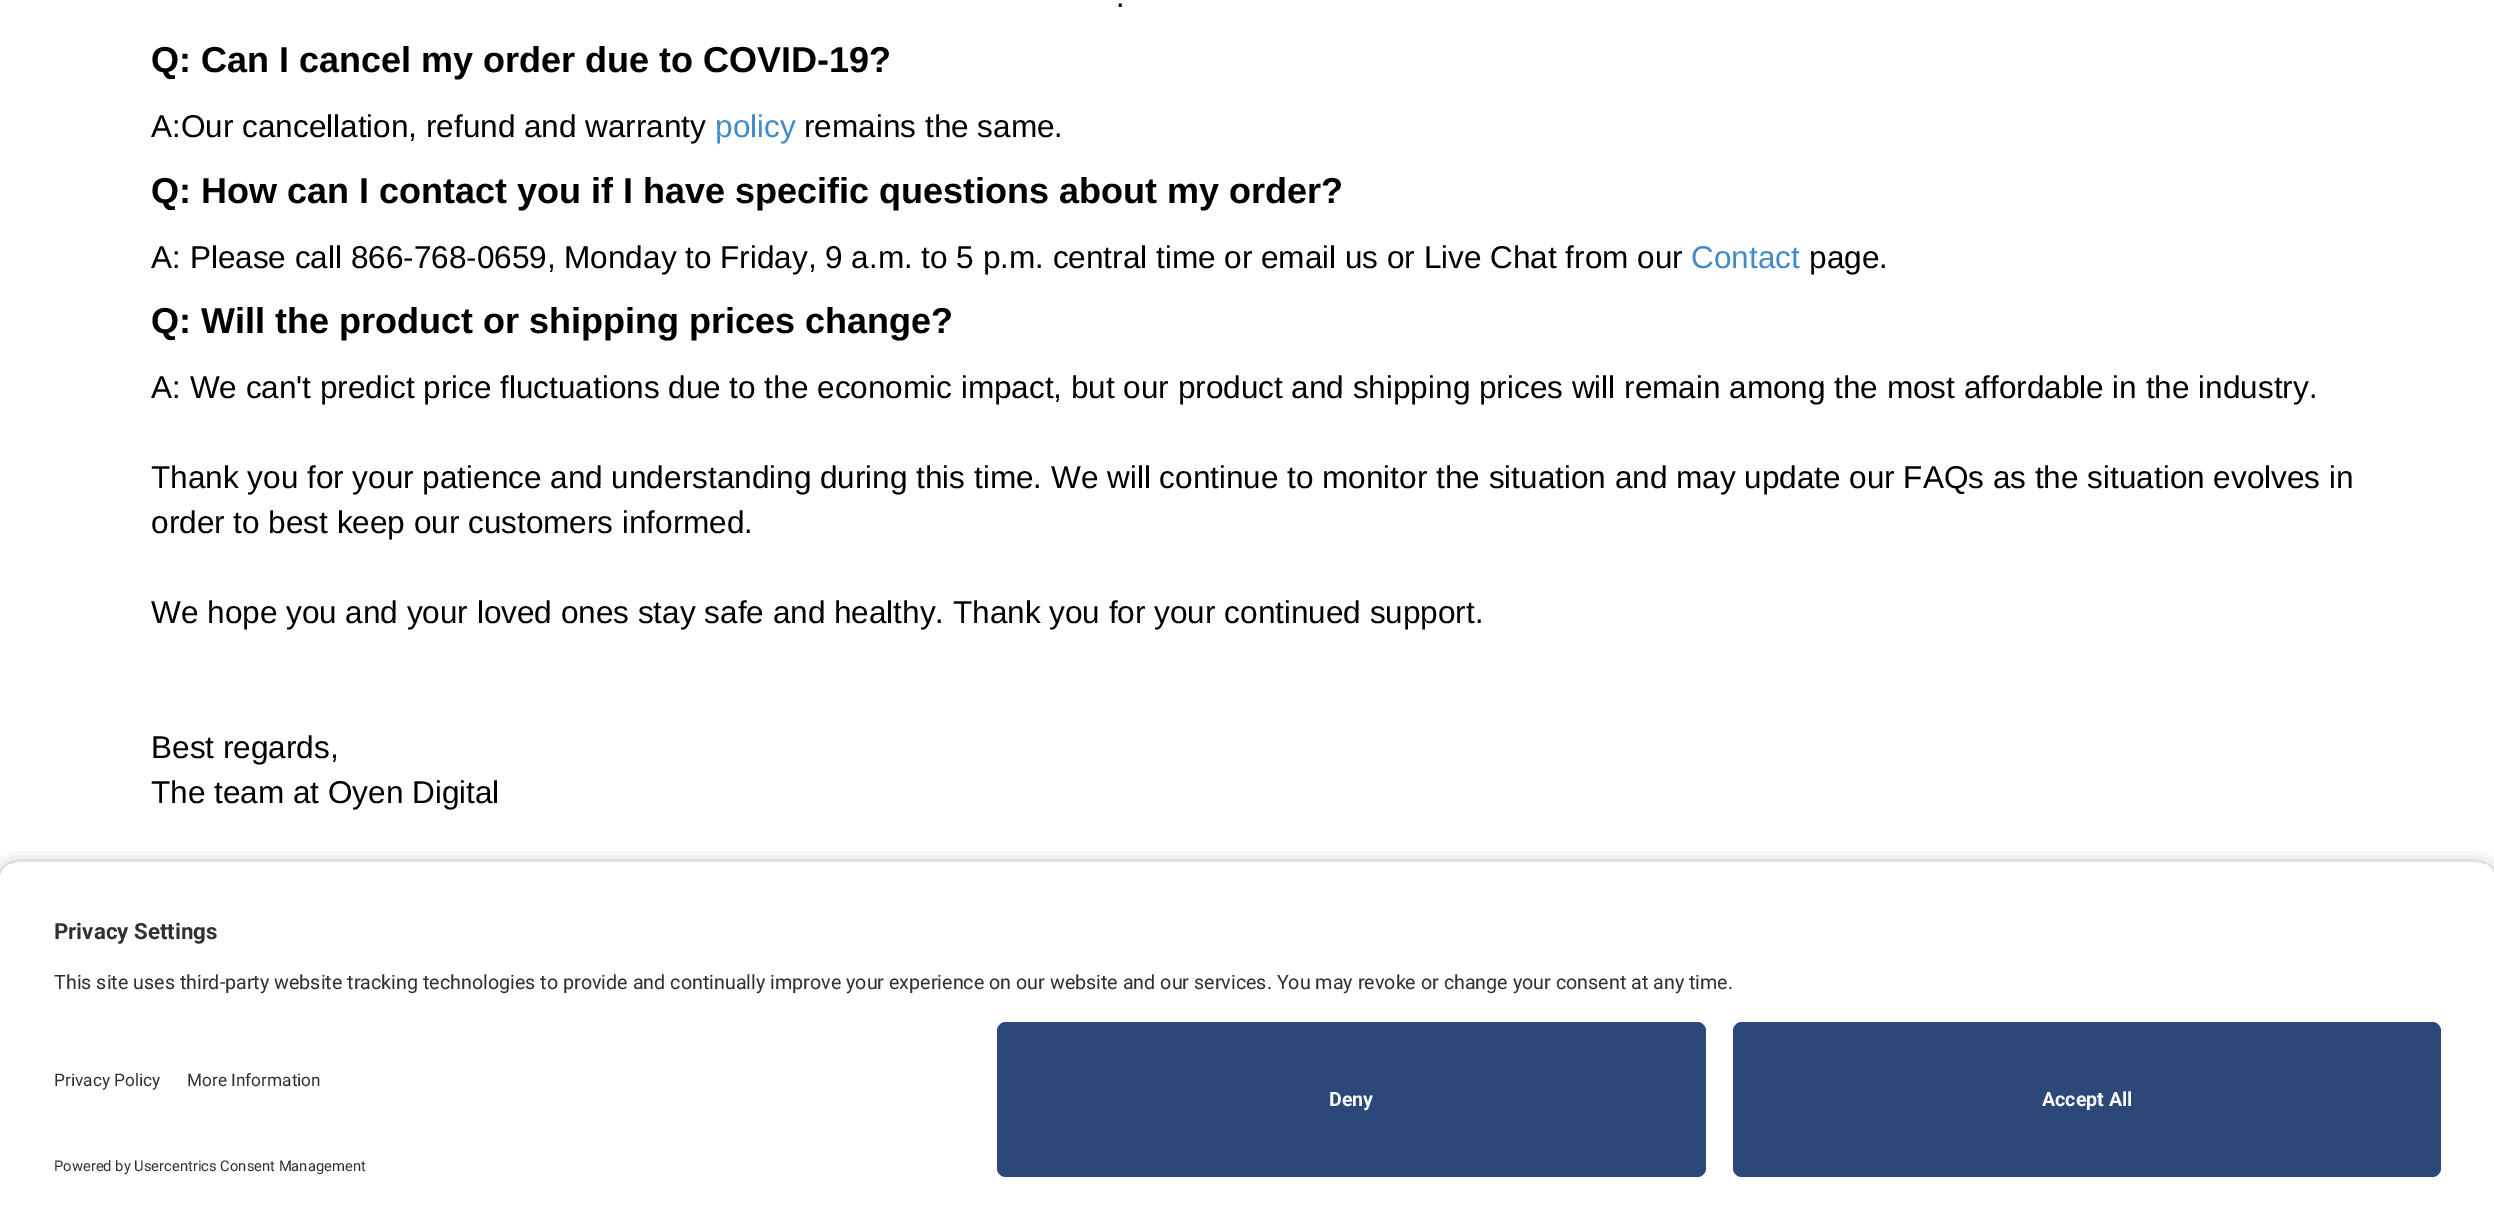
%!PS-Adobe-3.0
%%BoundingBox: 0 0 2494 1229
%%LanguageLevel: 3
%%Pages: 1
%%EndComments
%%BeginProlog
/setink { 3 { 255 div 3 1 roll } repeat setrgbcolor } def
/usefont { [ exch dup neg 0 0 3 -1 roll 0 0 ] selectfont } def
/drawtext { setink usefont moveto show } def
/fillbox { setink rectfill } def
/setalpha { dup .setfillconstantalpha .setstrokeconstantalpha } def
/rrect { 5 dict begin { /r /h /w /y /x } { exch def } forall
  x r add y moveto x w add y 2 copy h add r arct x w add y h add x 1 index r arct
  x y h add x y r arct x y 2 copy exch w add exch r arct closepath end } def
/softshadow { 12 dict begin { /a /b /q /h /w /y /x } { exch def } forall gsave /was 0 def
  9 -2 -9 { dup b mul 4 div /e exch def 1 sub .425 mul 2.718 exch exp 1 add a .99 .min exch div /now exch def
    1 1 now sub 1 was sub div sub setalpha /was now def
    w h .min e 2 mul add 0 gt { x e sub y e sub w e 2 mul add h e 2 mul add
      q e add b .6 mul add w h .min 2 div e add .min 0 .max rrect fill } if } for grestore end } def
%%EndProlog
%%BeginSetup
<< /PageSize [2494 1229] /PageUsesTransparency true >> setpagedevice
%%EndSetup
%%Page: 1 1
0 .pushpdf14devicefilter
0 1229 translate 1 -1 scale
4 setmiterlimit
0 0 2494 1229 255 255 255 fillbox
(.) 1116 7 /LiberationSans-Regular 31.5 0 0 0 drawtext
(Q: Can I cancel my order due to COVID-19?) 151 72 /LiberationSans-Bold 36 0 0 0 drawtext
(A:Our cancellation, refund and warranty) 151 137 /LiberationSans-Regular 31.5 0 0 0 drawtext
(policy) 715 137 /LiberationSans-Regular 31.5 66 139 202 drawtext
(remains the same.) 804 137 /LiberationSans-Regular 31.5 0 0 0 drawtext
(Q: How can I contact you if I have specific questions about my order?) 151 203 /LiberationSans-Bold 36 0 0 0 drawtext
(A: Please call 866-768-0659, Monday to Friday, 9 a.m. to 5 p.m. central time or email us or Live Chat from our) 151 268 /LiberationSans-Regular 31.5 0 0 0 drawtext
(Contact) 1691 268 /LiberationSans-Regular 31.5 66 139 202 drawtext
(page.) 1809 268 /LiberationSans-Regular 31.5 0 0 0 drawtext
(Q: Will the product or shipping prices change?) 151 333 /LiberationSans-Bold 36 0 0 0 drawtext
(A: We can't predict price fluctuations due to the economic impact, but our product and shipping prices will remain among the most affordable in the industry.) 151 398 /LiberationSans-Regular 31.5 0 0 0 drawtext
(Thank you for your patience and understanding during this time. We will continue to monitor the situation and may update our FAQs as the situation evolves in) 151 488 /LiberationSans-Regular 31.5 0 0 0 drawtext
(order to best keep our customers informed.) 151 533 /LiberationSans-Regular 31.5 0 0 0 drawtext
(We hope you and your loved ones stay safe and healthy. Thank you for your continued support.) 151 623 /LiberationSans-Regular 31.5 0 0 0 drawtext
(Best regards,) 151 758 /LiberationSans-Regular 31.5 0 0 0 drawtext
(The team at Oyen Digital) 151 803 /LiberationSans-Regular 31.5 0 0 0 drawtext
gsave
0 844 moveto 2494 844 lineto 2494 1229 lineto 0 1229 lineto closepath 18 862 moveto 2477 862 lineto 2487 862 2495 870 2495 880 curveto 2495 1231 lineto 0 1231 lineto 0 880 lineto 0 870 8 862 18 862 curveto closepath eoclip newpath
0 869 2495 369 18 8 0.8 softshadow
grestore
gsave
18 862 moveto 2477 862 lineto 2487 862 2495 870 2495 880 curveto 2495 1004 lineto 0 1004 lineto 0 880 lineto 0 870 8 862 18 862 curveto closepath clip newpath
0 864 2494 140 255 255 255 fillbox
grestore
(Privacy Settings) 54 939 /Roboto-Bold 22.25 48 48 48 drawtext
(This site uses third-party website tracking technologies to provide and continually improve your experience on our website and our services. You may revoke or change your consent at any time.) 54 989 /Roboto-Regular 19.7 48 48 48 drawtext
(Privacy Policy) 54 1086 /Roboto-Regular 17.25 48 48 48 drawtext
(More Information) 187 1086 /Roboto-Regular 17.25 48 48 48 drawtext
(Powered by Usercentrics Consent Management) 54 1171 /Roboto-Regular 14.75 48 48 48 drawtext
43 72 121 setink
997 1022 709 155 9 rrect fill
(Deny) 1329 1106 /Roboto-Bold 19.7 250 250 250 drawtext
43 72 121 setink
1733 1022 708 155 9 rrect fill
(Accept All) 2042 1106 /Roboto-Bold 19.7 250 250 250 drawtext
.poppdf14devicefilter showpage
%%EOF
